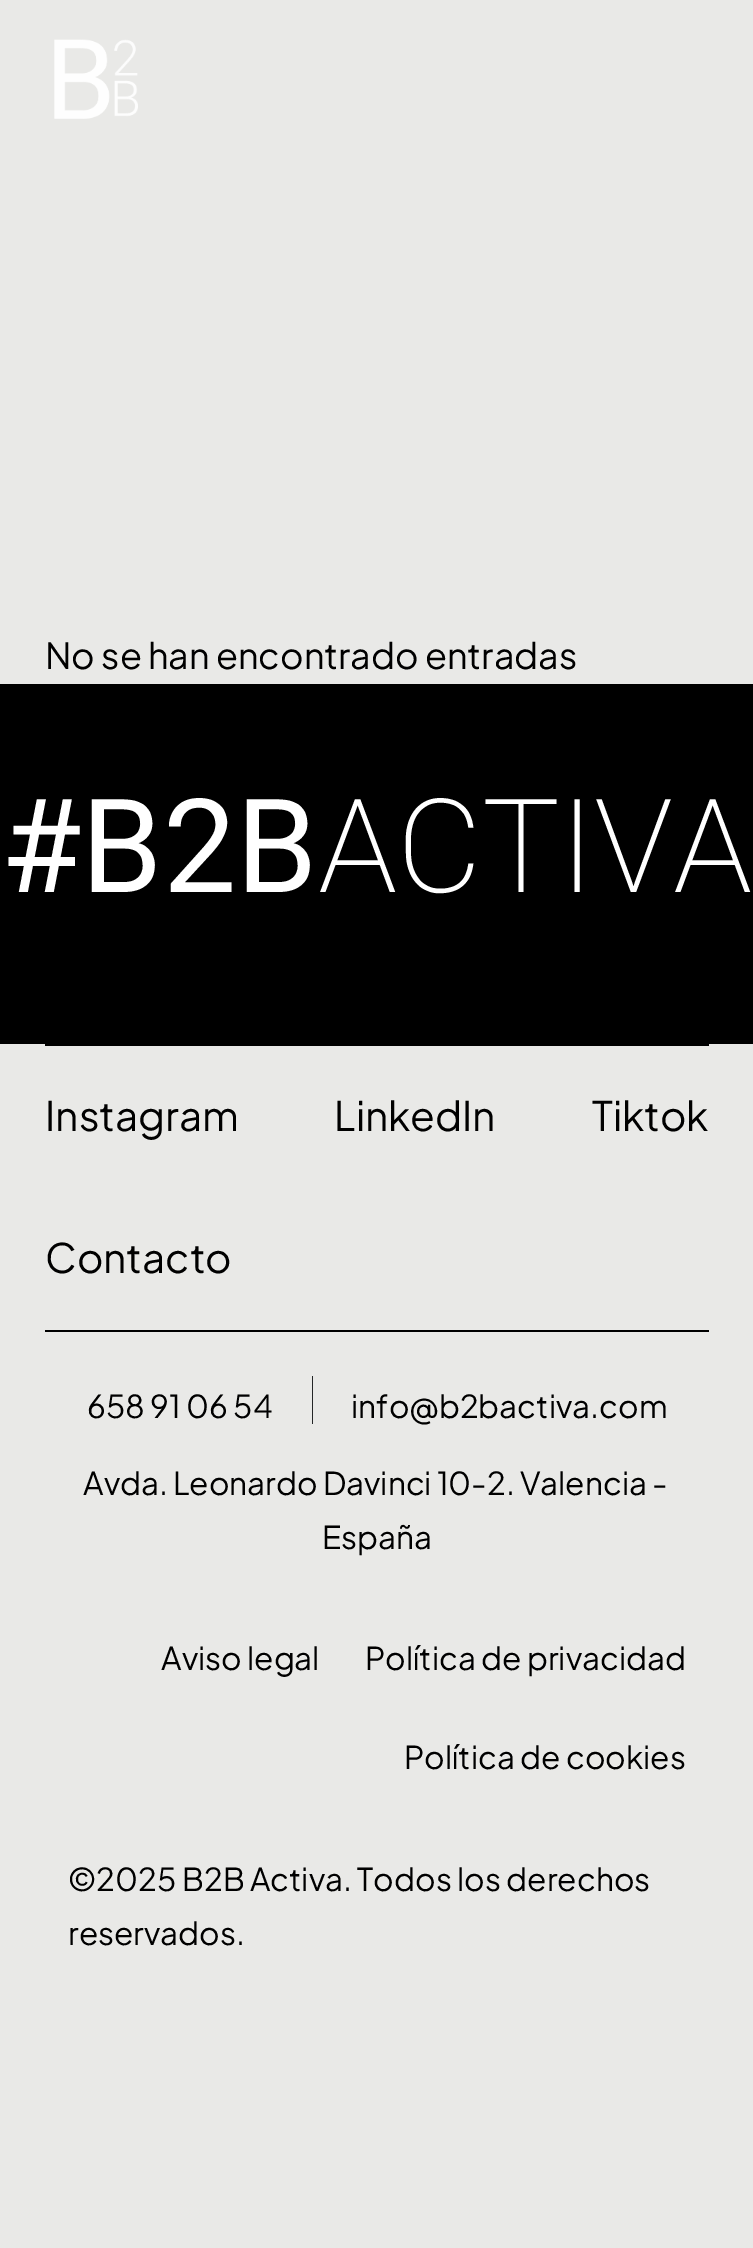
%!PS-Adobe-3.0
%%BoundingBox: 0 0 753 2248
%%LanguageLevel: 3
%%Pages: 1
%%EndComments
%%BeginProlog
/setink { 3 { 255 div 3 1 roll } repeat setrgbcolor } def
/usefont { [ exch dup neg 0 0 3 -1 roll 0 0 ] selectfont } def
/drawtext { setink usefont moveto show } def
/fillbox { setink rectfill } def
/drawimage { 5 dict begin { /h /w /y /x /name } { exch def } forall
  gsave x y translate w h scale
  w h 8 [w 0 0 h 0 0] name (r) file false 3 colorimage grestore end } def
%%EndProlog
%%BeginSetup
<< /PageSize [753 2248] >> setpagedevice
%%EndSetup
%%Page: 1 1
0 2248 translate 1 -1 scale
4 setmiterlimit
0 0 753 2248 233 233 231 fillbox
(assets/img1.rgb) 54 39 84 80 drawimage
(No se han encontrado entradas) 45 669 /PlusJakartaSans-Regular 36 0 0 0 drawtext
0 684 753 360 0 0 0 fillbox
(#B2B) 1 892 /Roboto-Regular 130.5 255 255 255 drawtext
(ACTIVA) 318 892 /Roboto-ExtraLight 130.5 255 255 255 drawtext
45 1044 664 2 0 0 0 fillbox
45 1330 664 2 0 0 0 fillbox
(Instagram) 45 1131 /PlusJakartaSans-Regular 40.5 0 0 0 drawtext
(LinkedIn) 334 1131 /PlusJakartaSans-Regular 40.5 0 0 0 drawtext
(Tiktok) 592 1131 /PlusJakartaSans-Regular 40.5 0 0 0 drawtext
(Contacto) 45 1273 /PlusJakartaSans-Regular 40.5 0 0 0 drawtext
(658 91 06 54) 87 1418 /PlusJakartaSans-Regular 31.5 0 0 0 drawtext
312 1376 1 48 36 38 39 fillbox
(info@b2bactiva.com) 351 1418 /PlusJakartaSans-Regular 31.5 0 0 0 drawtext
83 1495 moveto -0.5 0 32 (Avda. Leonardo Davinci 10-2. Valencia -) widthshow
(España) 322 1549 /PlusJakartaSans-Regular 31.5 0 0 0 drawtext
(Aviso legal) 161 1670 /PlusJakartaSans-Regular 31.5 0 0 0 drawtext
(Política de privacidad) 365 1670 /PlusJakartaSans-Regular 31.5 0 0 0 drawtext
(Política de cookies) 404 1769 /PlusJakartaSans-Regular 31.5 0 0 0 drawtext
(©2025 B2B Activa. Todos los derechos) 68 1891 /PlusJakartaSans-Regular 31.5 0 0 0 drawtext
(reservados.) 68 1945 /PlusJakartaSans-Regular 31.5 0 0 0 drawtext
showpage
%%EOF
